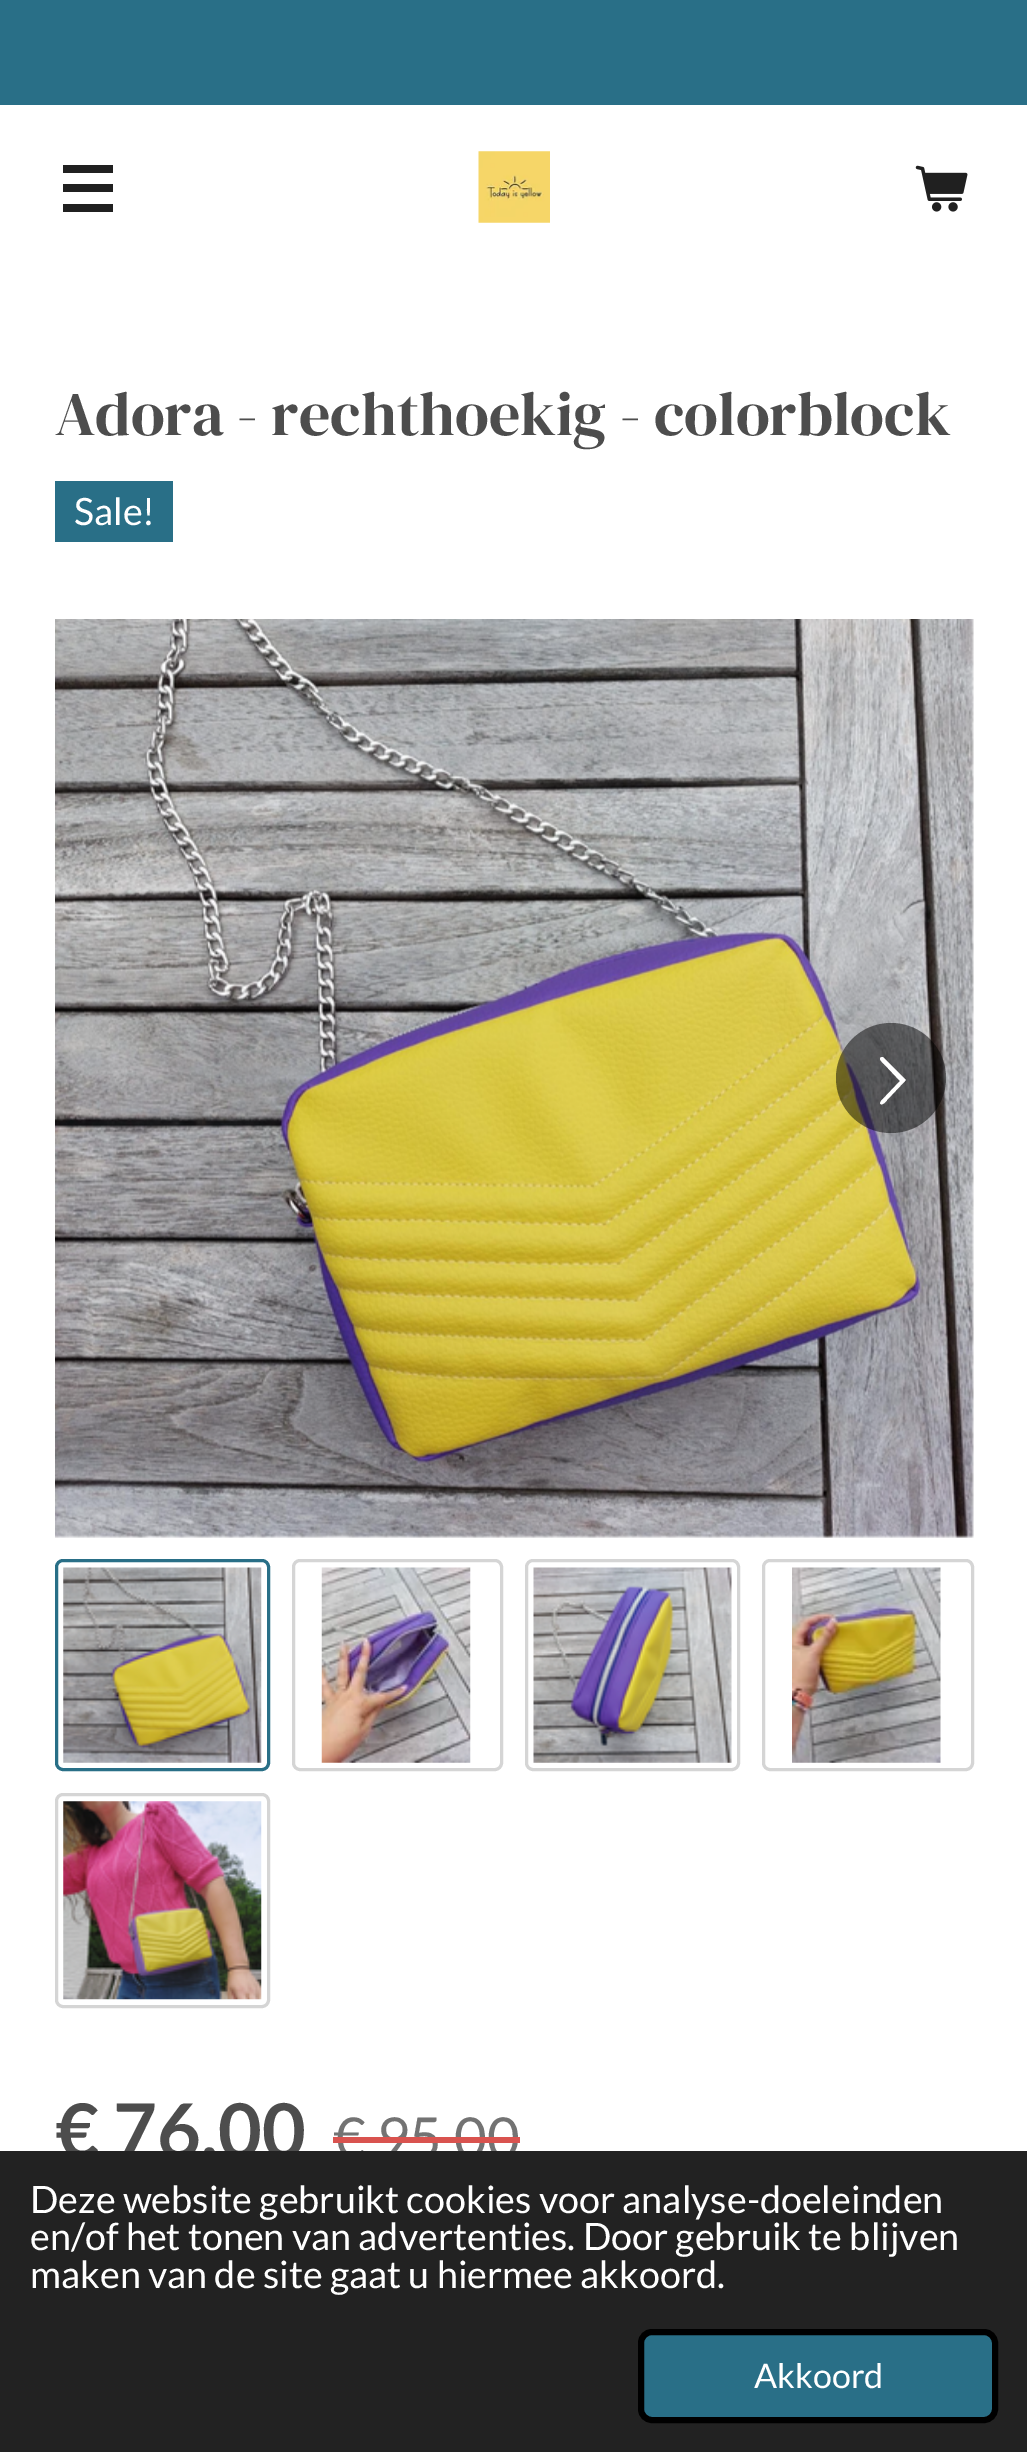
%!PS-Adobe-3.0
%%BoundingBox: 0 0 1027 2452
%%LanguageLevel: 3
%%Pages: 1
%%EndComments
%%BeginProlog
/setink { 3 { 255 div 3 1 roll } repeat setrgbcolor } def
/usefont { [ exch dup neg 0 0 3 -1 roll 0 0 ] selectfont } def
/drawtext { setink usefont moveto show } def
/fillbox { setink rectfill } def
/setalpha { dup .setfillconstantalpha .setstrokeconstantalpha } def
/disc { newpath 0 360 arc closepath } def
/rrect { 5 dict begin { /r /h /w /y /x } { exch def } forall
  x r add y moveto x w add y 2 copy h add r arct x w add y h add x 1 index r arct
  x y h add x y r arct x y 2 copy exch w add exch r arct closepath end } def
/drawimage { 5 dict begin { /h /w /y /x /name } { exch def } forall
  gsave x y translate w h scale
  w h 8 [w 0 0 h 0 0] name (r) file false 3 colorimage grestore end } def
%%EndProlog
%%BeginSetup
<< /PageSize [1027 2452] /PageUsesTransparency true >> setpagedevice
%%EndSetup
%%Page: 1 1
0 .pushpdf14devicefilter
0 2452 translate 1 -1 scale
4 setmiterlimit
0 0 1027 2452 255 255 255 fillbox
0 0 1027 105 41 111 135 fillbox
63 184 50 8 32 32 32 fillbox
63 165 50 8 32 32 32 fillbox
63 204 50 8 32 32 32 fillbox
(assets/img1.rgb) 478 151 72 72 drawimage
(assets/img2.rgb) 915 165 53 47 drawimage
(Adora - rechthoekig - colorblock) 55 435 /DMSerifDisplay-Regular 61.9 77 77 77 drawtext
55 481 118 61 41 111 135 fillbox
(Sale!) 74 525 /Lato-Regular 37.7 255 255 255 drawtext
(assets/img3.rgb) 55 619 919 919 drawimage
0.5 setalpha
0 0 0 setink
891 1078 55 disc fill
1 setalpha
255 255 255 setink
881 1101 moveto 900 1081 lineto 884 1064 lineto 883 1063 877 1058 882 1057 curveto 883 1057 lineto 906 1080 lineto 905 1081 lineto 887 1100 lineto 887 1101 881 1107 880 1103 curveto closepath fill
41 111 135 setink
3 setlinewidth
56.5 1560.5 212 209 6.5 rrect stroke
(assets/img4.rgb) 63 1567 199 196 drawimage
213 213 213 setink
293.5 1560.5 208 209 6.5 rrect stroke
(assets/img5.rgb) 321 1567 150 196 drawimage
526.5 1560.5 212 209 6.5 rrect stroke
(assets/img6.rgb) 533 1567 199 196 drawimage
763.5 1560.5 209 209 6.5 rrect stroke
(assets/img7.rgb) 792 1567 149 196 drawimage
56.5 1794.5 212 212 6.5 rrect stroke
(assets/img8.rgb) 63 1801 199 199 drawimage
(€ 76,00) 55 2158 /Lato-Bold 75.5 77 77 77 drawtext
(€ 95,00) 333 2158 /Lato-Regular 56.5 115 115 115 drawtext
333 2137 187 6 217 83 79 fillbox
0 2151 1027 301 34 34 34 fillbox
(Deze website gebruikt cookies voor analyse-doeleinden) 30 2213 /Lato-Regular 37.7 255 255 255 drawtext
(en/of het tonen van advertenties. Door gebruik te blijven) 30 2250 /Lato-Regular 37.7 255 255 255 drawtext
(maken van de site gaat u hiermee akkoord.) 30 2288 /Lato-Regular 37.7 255 255 255 drawtext
41 111 135 setink
641 2332 354 88 11 rrect gsave fill grestore
0 0 0 setink
6 setlinewidth
stroke
(Akkoord) 754 2388 /Lato-Regular 34 255 255 255 drawtext
.poppdf14devicefilter showpage
%%EOF
